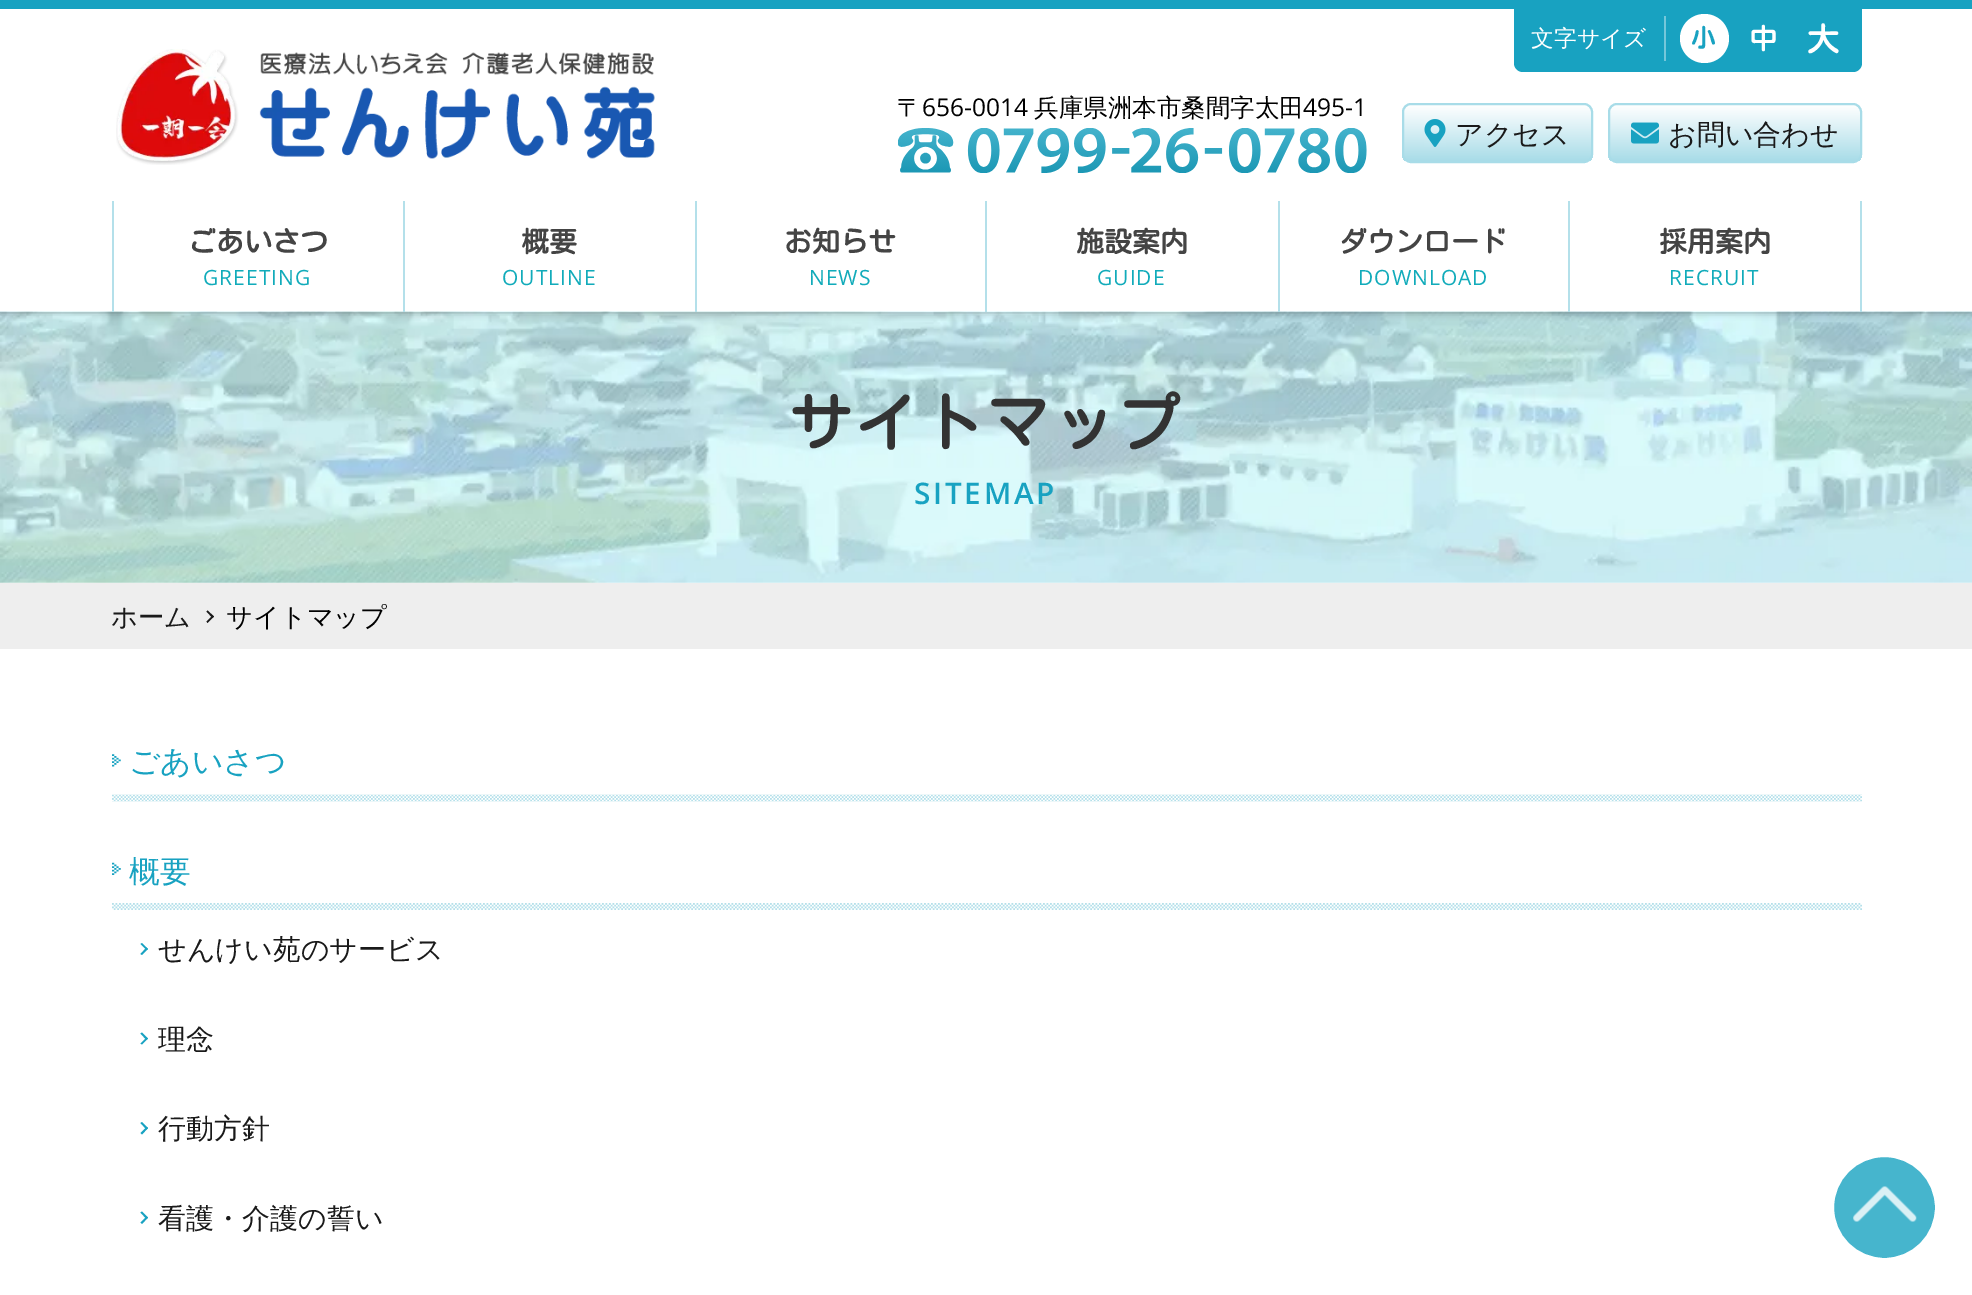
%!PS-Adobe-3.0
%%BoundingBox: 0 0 1972 1295
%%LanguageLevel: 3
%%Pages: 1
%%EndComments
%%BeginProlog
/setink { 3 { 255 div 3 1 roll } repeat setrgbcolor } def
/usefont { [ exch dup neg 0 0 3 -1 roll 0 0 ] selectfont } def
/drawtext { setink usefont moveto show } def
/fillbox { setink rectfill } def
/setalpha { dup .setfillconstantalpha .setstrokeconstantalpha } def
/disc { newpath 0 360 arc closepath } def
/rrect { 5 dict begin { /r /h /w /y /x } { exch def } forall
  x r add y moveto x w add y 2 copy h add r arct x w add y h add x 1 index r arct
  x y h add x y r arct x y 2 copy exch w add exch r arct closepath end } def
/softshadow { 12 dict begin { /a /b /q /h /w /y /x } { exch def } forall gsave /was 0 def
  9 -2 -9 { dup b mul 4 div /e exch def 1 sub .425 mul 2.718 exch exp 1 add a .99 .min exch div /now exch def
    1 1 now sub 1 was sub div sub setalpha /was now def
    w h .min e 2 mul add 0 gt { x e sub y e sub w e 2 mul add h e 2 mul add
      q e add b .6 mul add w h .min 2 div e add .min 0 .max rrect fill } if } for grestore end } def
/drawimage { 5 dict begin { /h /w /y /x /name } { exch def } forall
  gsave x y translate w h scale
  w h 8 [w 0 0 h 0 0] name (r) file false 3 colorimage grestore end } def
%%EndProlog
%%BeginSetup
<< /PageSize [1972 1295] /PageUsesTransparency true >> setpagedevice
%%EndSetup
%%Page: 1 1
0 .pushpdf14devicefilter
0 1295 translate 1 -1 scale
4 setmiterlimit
0 0 1972 1295 255 255 255 fillbox
(assets/img5.rgb) 0 311 1972 272 drawimage
gsave
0 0 moveto 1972 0 lineto 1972 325 lineto 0 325 lineto closepath 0 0 moveto 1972 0 lineto 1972 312 lineto 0 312 lineto closepath eoclip newpath
0 0 0 setink
0 2 1972 311 0 3.5 0.3 softshadow
grestore
0 0 1972 9 24 162 193 fillbox
1514 9 moveto 1862 9 lineto 1862 63 lineto 1862 68 1858 72 1853 72 curveto 1523 72 lineto 1518 72 1514 68 1514 63 curveto closepath fill
1664 16 2 45 116 199 218 fillbox
(文字サイズ) 1531 46 /WenQuanYiZenHei-Medium 22.75 255 255 255 drawtext
1704.5 38.5 24.5 disc fill
(小) 1691 47 /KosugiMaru-Bold 24.5 24 162 193 drawtext
(中) 1749 49 /KosugiMaru-Bold 28 255 255 255 drawtext
(大) 1807 51 /KosugiMaru-Bold 32 255 255 255 drawtext
(assets/img1.rgb) 116 49 539 116 drawimage
(〒) 897 116 /WenQuanYiZenHei-Medium 24.5 0 0 0 drawtext
(656-0014) 922 116 /OpenSans-Regular 24.5 0 0 0 drawtext
(兵庫県洲本市桑間字太田) 1034 116 /WenQuanYiZenHei-Medium 24.5 0 0 0 drawtext
(495-1) 1303 116 /OpenSans-Regular 24.5 0 0 0 drawtext
(assets/img2.rgb) 898 128 469 45 drawimage
gsave
1402 103 191 60 9 rrect clip newpath
gsave 1402 105 moveto 1593 105 lineto 1593 161 lineto 1402 161 lineto closepath clip newpath
<< /ShadingType 2 /ColorSpace /DeviceRGB /Coords [1497 105 1497 161] /Extend [true true] /Function << /FunctionType 2 /Domain [0 1] /C0 [1 1 1] /C1 [0.659 0.863 0.91] /N 1 >> >> shfill grestore
grestore
168 220 232 setink
2 setlinewidth
1403 104 189 58 8 rrect stroke
(assets/img3.rgb) 1424 119 22 28 drawimage
(アクセス) 1455 144 /WenQuanYiZenHei-Medium 28 26 26 26 drawtext
gsave
1608 103 254 60 9 rrect clip newpath
gsave 1608 105 moveto 1862 105 lineto 1862 161 lineto 1608 161 lineto closepath clip newpath
<< /ShadingType 2 /ColorSpace /DeviceRGB /Coords [1735 105 1735 161] /Extend [true true] /Function << /FunctionType 2 /Domain [0 1] /C0 [1 1 1] /C1 [0.659 0.863 0.91] /N 1 >> >> shfill grestore
grestore
168 220 232 setink
1609 104 252 58 8 rrect stroke
(assets/img4.rgb) 1631 122 28 22 drawimage
(お問い合わせ) 1668 144 /WenQuanYiZenHei-Medium 28 26 26 26 drawtext
1860 201 2 111 180 224 234 fillbox
112 201 2 111 180 224 234 fillbox
(ごあいさつ) 188 252 /KosugiMaru-Bold 28 68 68 68 drawtext
/OpenSans-Regular 21 usefont
17 171 186 setink
203 285 moveto 1 0 (GREETING) ashow
403 201 2 111 180 224 234 fillbox
(概要) 521 252 /KosugiMaru-Bold 28 68 68 68 drawtext
/OpenSans-Regular 21 usefont
17 171 186 setink
502 285 moveto 1 0 (OUTLINE) ashow
695 201 2 111 180 224 234 fillbox
(お知らせ) 784 252 /KosugiMaru-Bold 28 68 68 68 drawtext
/OpenSans-Regular 21 usefont
17 171 186 setink
809 285 moveto 1 0 (NEWS) ashow
985 201 2 111 180 224 234 fillbox
(施設案内) 1076 252 /KosugiMaru-Bold 28 68 68 68 drawtext
/OpenSans-Regular 21 usefont
17 171 186 setink
1097 285 moveto 1 0 (GUIDE) ashow
1278 201 2 111 180 224 234 fillbox
(ダウンロード) 1339 252 /KosugiMaru-Bold 28 68 68 68 drawtext
/OpenSans-Regular 21 usefont
17 171 186 setink
1358 285 moveto 1 0 (DOWNLOAD) ashow
1568 201 2 111 180 224 234 fillbox
(採用案内) 1659 252 /KosugiMaru-Bold 28 68 68 68 drawtext
/OpenSans-Regular 21 usefont
17 171 186 setink
1669 285 moveto 1 0 (RECRUIT) ashow
/KosugiMaru-Bold 63 usefont
51 51 51 setink
789 446 moveto 2.75 0 (サイトマップ) ashow
/OpenSans-SemiBold 29.75 usefont
24 162 193 setink
914 504 moveto 2.75 0 (SITEMAP) ashow
0 583 1972 66 238 238 238 fillbox
(ホーム) 111 626 /WenQuanYiZenHei-Medium 26.25 26 26 26 drawtext
207.5 610.5 moveto 214 616.5 lineto 212.5 618 lineto 206.5 611.5 lineto closepath fill
212.5 615.5 moveto 214 616.5 lineto 207.5 623 lineto 206.5 621.5 lineto closepath fill
(サイトマップ) 226 626 /WenQuanYiZenHei-Medium 26.25 0 0 0 drawtext
(assets/img6.rgb) 112 754 9 13 drawimage
(ごあいさつ) 129 772 /WenQuanYiZenHei-Medium 30.75 24 162 193 drawtext
(assets/img7.rgb) 112 794 1750 8 drawimage
(assets/img8.rgb) 112 862 9 13 drawimage
(概要) 129 882 /WenQuanYiZenHei-Medium 30.75 24 162 193 drawtext
(assets/img9.rgb) 112 903 1750 7 drawimage
142 943 moveto 148 949 lineto 146.5 950 lineto 140.5 944 lineto closepath fill
146.5 947.5 moveto 148 949 lineto 142 955 lineto 140.5 954 lineto closepath fill
(せんけい苑のサービス) 158 959 /WenQuanYiZenHei-Medium 28 26 26 26 drawtext
24 162 193 setink
142 1032.5 moveto 148 1038.5 lineto 146.5 1040 lineto 140.5 1033.5 lineto closepath fill
146.5 1037.5 moveto 148 1038.5 lineto 142 1044.5 lineto 140.5 1043.5 lineto closepath fill
(理念) 158 1049 /WenQuanYiZenHei-Medium 28 26 26 26 drawtext
24 162 193 setink
142 1122 moveto 148 1128 lineto 146.5 1129.5 lineto 140.5 1123 lineto closepath fill
146.5 1127 moveto 148 1128 lineto 142 1134.5 lineto 140.5 1133 lineto closepath fill
(行動方針) 158 1138 /WenQuanYiZenHei-Medium 28 26 26 26 drawtext
24 162 193 setink
142 1211.5 moveto 148 1217.5 lineto 146.5 1219 lineto 140.5 1212.5 lineto closepath fill
146.5 1216.5 moveto 148 1217.5 lineto 142 1224 lineto 140.5 1222.5 lineto closepath fill
(看護・介護の誓い) 158 1228 /WenQuanYiZenHei-Medium 28 26 26 26 drawtext
70 181 205 setink
1884.5 1207.5 51.5 disc gsave fill grestore
255 255 255 setink
stroke
(assets/img10.rgb) 1853 1186 64 36 drawimage
.poppdf14devicefilter showpage
%%EOF
